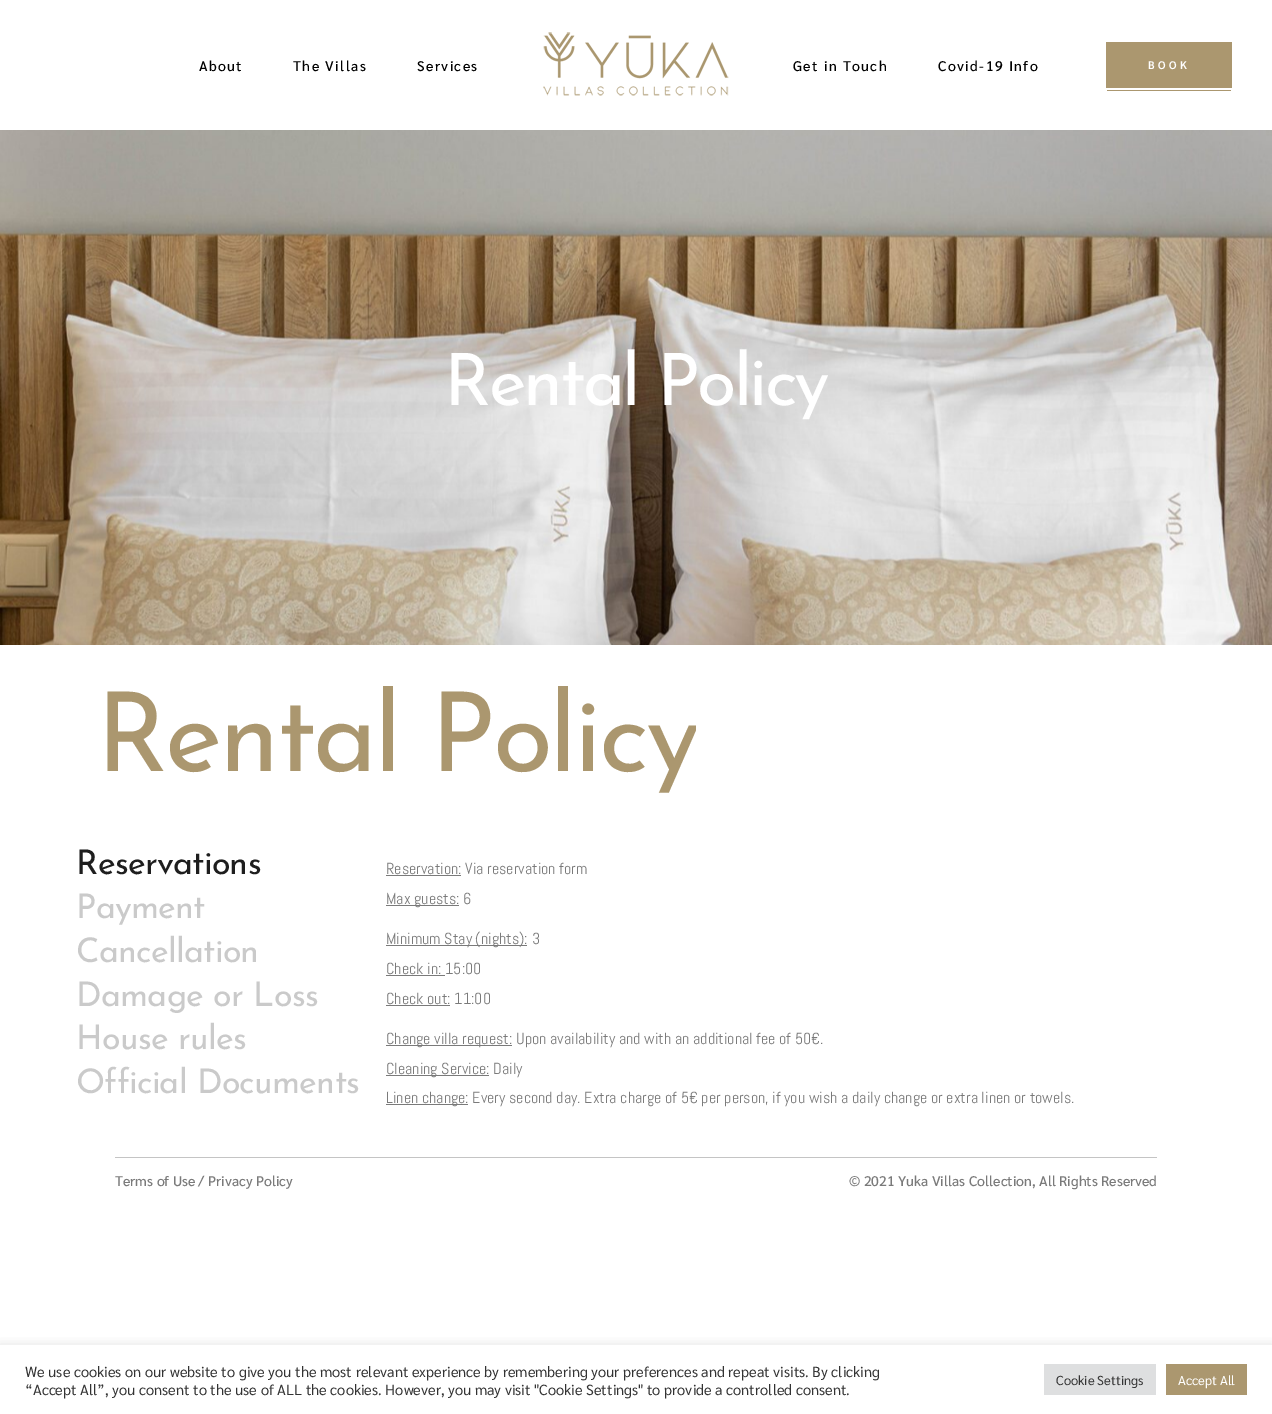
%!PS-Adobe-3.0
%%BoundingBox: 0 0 1272 1414
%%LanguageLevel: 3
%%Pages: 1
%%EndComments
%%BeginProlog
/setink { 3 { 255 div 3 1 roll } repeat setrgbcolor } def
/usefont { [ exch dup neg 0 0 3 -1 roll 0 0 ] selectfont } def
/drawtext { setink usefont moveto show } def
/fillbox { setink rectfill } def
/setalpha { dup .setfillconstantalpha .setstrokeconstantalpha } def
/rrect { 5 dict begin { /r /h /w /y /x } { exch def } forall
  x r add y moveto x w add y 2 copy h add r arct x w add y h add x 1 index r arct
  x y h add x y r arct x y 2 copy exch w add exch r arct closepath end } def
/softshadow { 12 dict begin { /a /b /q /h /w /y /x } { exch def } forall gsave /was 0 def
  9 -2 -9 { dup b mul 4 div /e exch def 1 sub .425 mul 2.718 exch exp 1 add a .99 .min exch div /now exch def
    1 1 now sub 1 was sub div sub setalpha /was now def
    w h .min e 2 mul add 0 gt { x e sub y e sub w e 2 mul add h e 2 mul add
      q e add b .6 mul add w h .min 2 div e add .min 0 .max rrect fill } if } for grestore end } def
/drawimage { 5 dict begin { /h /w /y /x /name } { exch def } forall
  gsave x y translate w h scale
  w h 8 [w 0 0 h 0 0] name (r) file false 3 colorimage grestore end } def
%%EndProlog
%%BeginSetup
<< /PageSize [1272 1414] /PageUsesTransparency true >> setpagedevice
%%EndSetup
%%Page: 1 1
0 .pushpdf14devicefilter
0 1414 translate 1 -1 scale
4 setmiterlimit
0 0 1272 1414 255 255 255 fillbox
/Sarabun-Medium 14 usefont
0 0 0 setink
199 71 moveto 1.4 0 (About) ashow
293 71 moveto 1.4 0 (The Villas) ashow
417 71 moveto 1.4 0 (Services) ashow
(assets/img1.rgb) 543 32 186 64 drawimage
793 71 moveto 1.4 0 (Get in Touch) ashow
938 71 moveto 1.4 0 (Covid-19 Info) ashow
1106 42 126 46 171 151 111 fillbox
/Sarabun-SemiBold 11 usefont
255 255 255 setink
1148 69 moveto 3.5 0 (BOOK) ashow
1107 90 124 1 171 151 111 fillbox
(assets/img2.rgb) 0 130 1272 515 drawimage
/JosefinSans-Regular 72 usefont
255 255 255 setink
444 405 moveto -2.9 0 (Rental Policy) ashow
gsave
96 683 600 126 rectclip
/JosefinSans-Regular 110 usefont
171 151 111 setink
96 771 moveto -3.25 0 (Rental Policy) ashow
grestore
/JosefinSans-Regular 34 usefont
30 30 30 setink
76 874 moveto -0.7 0 (Reservations) ashow
202 202 202 setink
76 918 moveto -0.7 0 (Payment) ashow
76 962 moveto -0.7 0 (Cancellation) ashow
76 1006 moveto -0.7 0 (Damage or Loss) ashow
76 1049 moveto -0.7 0 (House rules) ashow
76 1093 moveto -0.7 0 (Official Documents) ashow
(Reservation: Via reservation form) 386 874 /Abel-Regular 16 122 122 122 drawtext
386 875 75 1 122 122 122 fillbox
386 905 73 1 122 122 122 fillbox
(Max guests: 6) 386 904 /Abel-Regular 16 122 122 122 drawtext
386 945 141 1 122 122 122 fillbox
(Minimum Stay \(nights\): 3) 386 944 /Abel-Regular 16 122 122 122 drawtext
(Check in: 15:00) 386 974 /Abel-Regular 16 122 122 122 drawtext
386 975 59 1 122 122 122 fillbox
(Check out: 11:00) 386 1004 /Abel-Regular 16 122 122 122 drawtext
386 1005 64 1 122 122 122 fillbox
386 1045 126 1 122 122 122 fillbox
(Change villa request: Upon availability and with an additional fee of 50€.) 386 1044 /Abel-Regular 16 122 122 122 drawtext
386 1075 103 1 122 122 122 fillbox
(Cleaning Service: Daily) 386 1074 /Abel-Regular 16 122 122 122 drawtext
386 1104 82 1 122 122 122 fillbox
(Linen change: Every second day. Extra charge of 5€ per person, if you wish a daily change or extra linen or towels.) 386 1103 /Abel-Regular 16 122 122 122 drawtext
115 1157 1042 1 196 196 196 fillbox
(Terms of Use / Privacy Policy) 115 1186 /Sarabun-Medium 14 122 122 122 drawtext
(© 2021 Yuka Villas Collection, All Rights Reserved) 849 1186 /Sarabun-Medium 14 122 122 122 drawtext
gsave
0 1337 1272 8 rectclip
172 171 171 setink
0 1344 1272 69 0 5 0.3 softshadow
grestore
(We use cookies on our website to give you the most relevant experience by remembering your preferences and repeat visits. By clicking) 25 1377 /Sarabun-Regular 14.67 51 51 51 drawtext
(“Accept All”, you consent to the use of ALL the cookies. However, you may visit "Cookie Settings" to provide a controlled consent.) 25 1395 /Sarabun-Regular 14.67 51 51 51 drawtext
1044 1364 112 31 222 223 224 fillbox
(Cookie Settings) 1056 1385 /Sarabun-Regular 13 51 51 51 drawtext
1166 1364 81 31 171 151 111 fillbox
(Accept All) 1178 1385 /Sarabun-Regular 13 255 255 255 drawtext
.poppdf14devicefilter showpage
%%EOF
